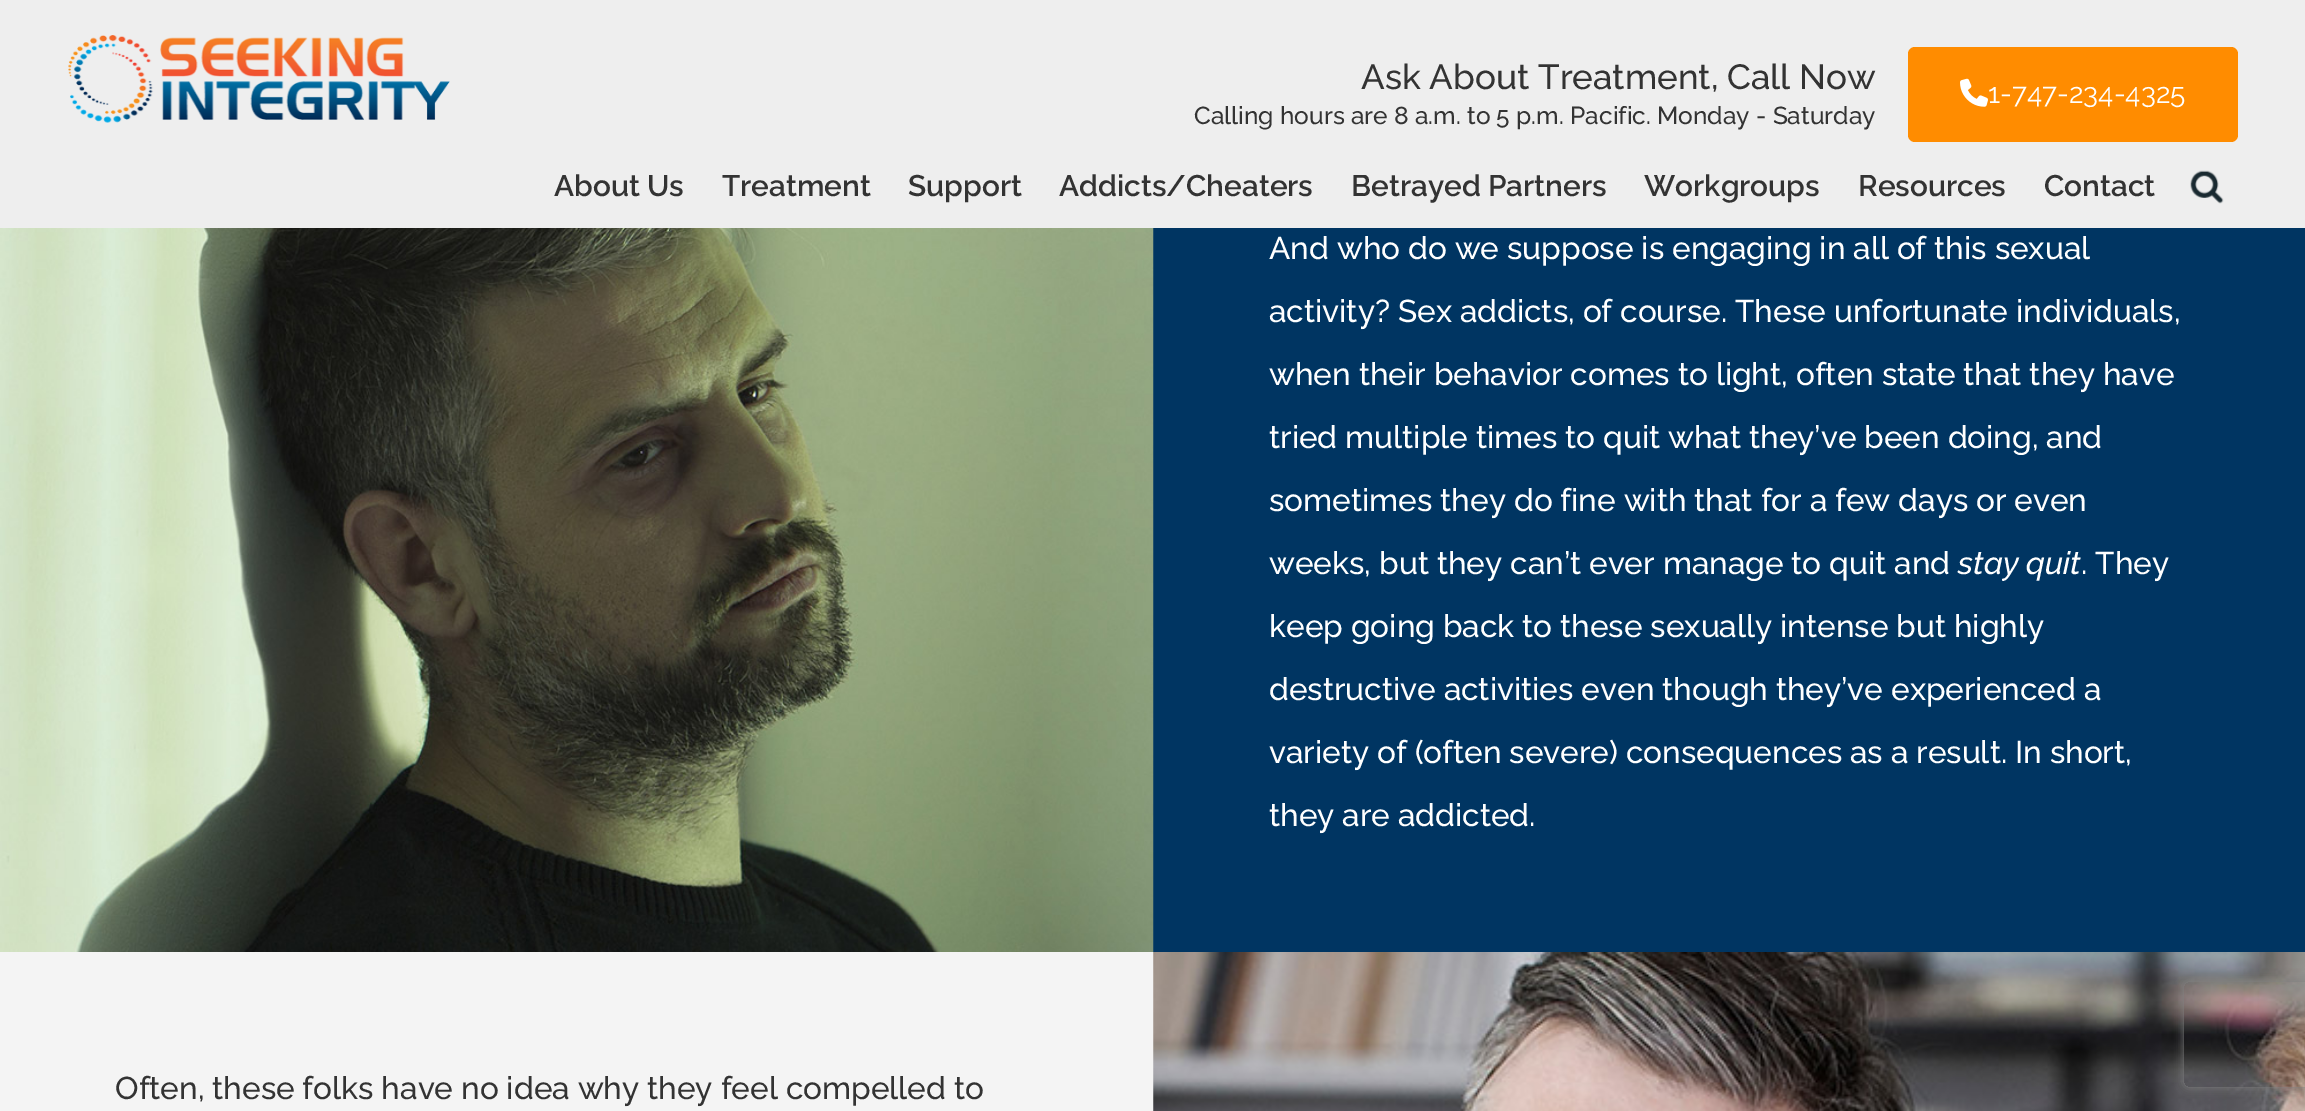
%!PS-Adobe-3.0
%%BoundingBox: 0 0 2305 1111
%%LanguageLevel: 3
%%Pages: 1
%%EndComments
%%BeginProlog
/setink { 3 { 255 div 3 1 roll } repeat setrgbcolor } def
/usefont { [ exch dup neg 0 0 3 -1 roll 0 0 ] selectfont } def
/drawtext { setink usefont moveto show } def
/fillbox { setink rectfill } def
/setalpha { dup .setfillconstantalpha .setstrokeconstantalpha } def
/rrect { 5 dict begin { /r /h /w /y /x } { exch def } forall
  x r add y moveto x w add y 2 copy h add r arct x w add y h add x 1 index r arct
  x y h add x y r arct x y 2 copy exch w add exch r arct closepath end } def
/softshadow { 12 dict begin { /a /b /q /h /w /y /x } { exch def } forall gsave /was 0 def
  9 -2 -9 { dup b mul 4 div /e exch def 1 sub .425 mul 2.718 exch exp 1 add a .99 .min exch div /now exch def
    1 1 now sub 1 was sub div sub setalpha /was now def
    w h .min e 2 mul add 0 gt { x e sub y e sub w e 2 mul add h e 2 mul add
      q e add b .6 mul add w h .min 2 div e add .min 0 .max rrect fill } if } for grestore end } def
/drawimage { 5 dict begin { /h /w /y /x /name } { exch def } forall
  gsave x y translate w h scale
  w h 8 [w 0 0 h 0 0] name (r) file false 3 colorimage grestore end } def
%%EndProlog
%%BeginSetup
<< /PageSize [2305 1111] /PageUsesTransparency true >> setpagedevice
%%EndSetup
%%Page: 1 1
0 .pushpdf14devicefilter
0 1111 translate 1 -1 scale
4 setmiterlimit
0 0 2305 1111 0 53 98 fillbox
0 0 2305 228 238 238 238 fillbox
(assets/img1.rgb) 68 35 382 88 drawimage
(Ask About Treatment, Call Now) 1361 89 /Raleway-Medium 35 51 51 51 drawtext
(Calling hours are 8 a.m. to 5 p.m. Pacific. Monday - Saturday) 1194 124 /Raleway-Medium 24.5 51 51 51 drawtext
255 140 0 setink
1908 47 330 95 7 rrect fill
(assets/img2.rgb) 1960 78 28 29 drawimage
(1-747-234-4325) 1988 103 /Raleway-Regular 28 255 255 255 drawtext
(About Us) 554 196 /Raleway-SemiBold 29.75 51 51 51 drawtext
(Treatment) 722 196 /Raleway-SemiBold 29.75 51 51 51 drawtext
(Support) 908 196 /Raleway-SemiBold 29.75 51 51 51 drawtext
(Addicts/Cheaters) 1059 196 /Raleway-SemiBold 29.75 51 51 51 drawtext
(Betrayed Partners) 1351 196 /Raleway-SemiBold 29.75 51 51 51 drawtext
(Workgroups) 1644 196 /Raleway-SemiBold 29.75 51 51 51 drawtext
(Resources) 1858 196 /Raleway-SemiBold 29.75 51 51 51 drawtext
(Contact) 2044 196 /Raleway-SemiBold 29.75 51 51 51 drawtext
(assets/img3.rgb) 2190 170 34 34 drawimage
(assets/img4.rgb) 0 228 1154 724 drawimage
(And who do we suppose is engaging in all of this sexual) 1269 259 /Raleway-Medium 31.5 255 255 255 drawtext
(activity? Sex addicts, of course. These unfortunate individuals,) 1269 322 /Raleway-Medium 31.5 255 255 255 drawtext
(when their behavior comes to light, often state that they have) 1269 385 /Raleway-Medium 31.5 255 255 255 drawtext
(tried multiple times to quit what they’ve been doing, and) 1269 448 /Raleway-Medium 31.5 255 255 255 drawtext
(sometimes they do fine with that for a few days or even) 1269 511 /Raleway-Medium 31.5 255 255 255 drawtext
(weeks, but they can’t ever manage to quit and) 1269 574 /Raleway-Medium 31.5 255 255 255 drawtext
(stay quit) 1958 574 /Raleway-MediumItalic 31.5 255 255 255 drawtext
(. They) 2081 574 /Raleway-Medium 31.5 255 255 255 drawtext
(keep going back to these sexually intense but highly) 1269 637 /Raleway-Medium 31.5 255 255 255 drawtext
(destructive activities even though they’ve experienced a) 1269 700 /Raleway-Medium 31.5 255 255 255 drawtext
(variety of \(often severe\) consequences as a result. In short,) 1269 763 /Raleway-Medium 31.5 255 255 255 drawtext
(they are addicted.) 1269 826 /Raleway-Medium 31.5 255 255 255 drawtext
0 952 1154 159 244 244 244 fillbox
(Often, these folks have no idea why they feel compelled to) 115 1099 /Raleway-Medium 31.5 51 51 51 drawtext
(assets/img5.rgb) 1153 952 1152 159 drawimage
gsave
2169 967 moveto 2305 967 lineto 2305 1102 lineto 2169 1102 lineto closepath 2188 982 moveto 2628 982 lineto 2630 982 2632 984 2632 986 curveto 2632 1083 lineto 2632 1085 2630 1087 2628 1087 curveto 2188 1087 lineto 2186 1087 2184 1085 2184 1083 curveto 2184 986 lineto 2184 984 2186 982 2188 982 curveto closepath eoclip newpath
128 128 128 setink
2184 982 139 105 4 4.5 1 softshadow
grestore
.poppdf14devicefilter showpage
%%EOF
